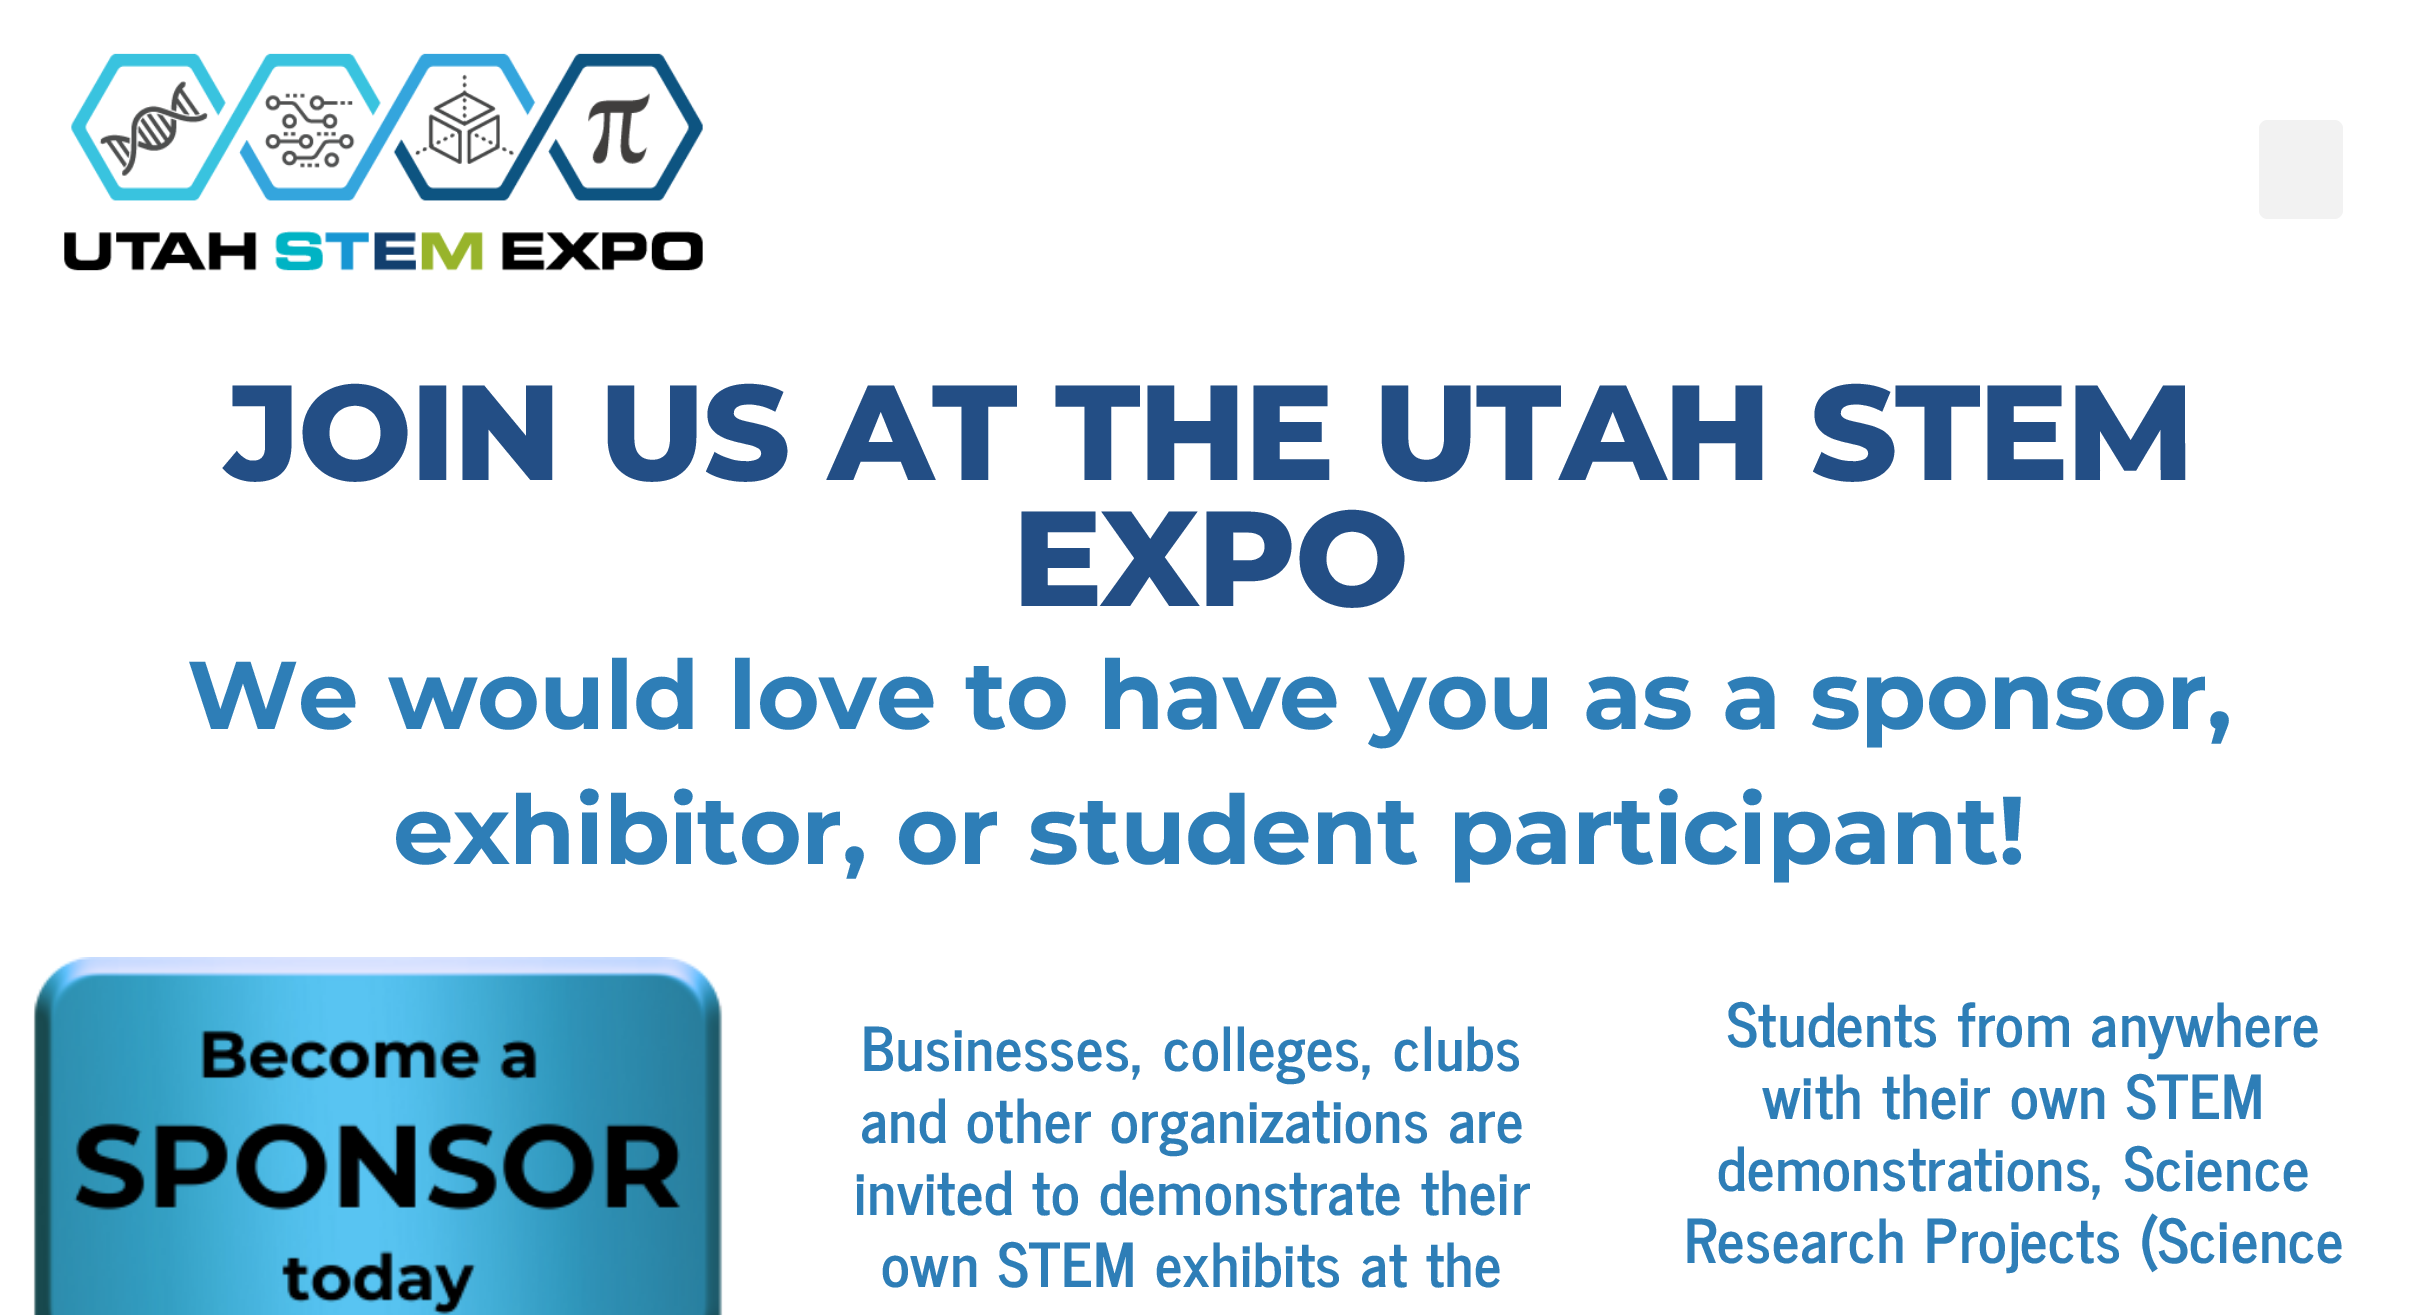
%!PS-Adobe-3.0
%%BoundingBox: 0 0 2418 1315
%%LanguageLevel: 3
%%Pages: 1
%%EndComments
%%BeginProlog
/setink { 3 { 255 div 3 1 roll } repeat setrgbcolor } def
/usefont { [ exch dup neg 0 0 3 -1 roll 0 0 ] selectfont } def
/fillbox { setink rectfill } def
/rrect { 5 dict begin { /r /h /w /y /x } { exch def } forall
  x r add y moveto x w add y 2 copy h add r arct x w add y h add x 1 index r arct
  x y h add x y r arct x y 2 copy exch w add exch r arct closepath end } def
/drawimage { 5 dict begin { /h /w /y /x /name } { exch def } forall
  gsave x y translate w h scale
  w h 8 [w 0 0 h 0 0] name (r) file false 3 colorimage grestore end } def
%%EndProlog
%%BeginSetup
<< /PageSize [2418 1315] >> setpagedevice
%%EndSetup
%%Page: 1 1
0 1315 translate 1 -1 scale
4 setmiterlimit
0 0 2418 1315 255 255 255 fillbox
(assets/img1.rgb) 64 53 639 218 drawimage
242 242 242 setink
2259 120 84 99 9 rrect fill
/Montserrat-ExtraBold 135 usefont
35 78 133 setink
225 480 moveto 3 0 32 -2.4 0 (JOIN US AT THE UTAH STEM) awidthshow
1012 606 moveto -2.4 0 (EXPO) ashow
/Montserrat-Bold 96 usefont
46 126 183 setink
187 729 moveto 3 0 32 -0.6 0 (We would love to have you as a sponsor,) awidthshow
393 864 moveto 3 0 32 -0.6 0 (exhibitor, or student participant!) awidthshow
(assets/img2.rgb) 33 957 690 358 drawimage
/NewsCycle-Bold 60 usefont
861 1071 moveto 3 0 32 0.6 0 (Businesses, colleges, clubs) awidthshow
860 1143 moveto 3 0 32 0.6 0 (and other organizations are) awidthshow
854 1215 moveto 3 0 32 0.6 0 (invited to demonstrate their) awidthshow
881 1287 moveto 3 0 32 0.6 0 (own STEM exhibits at the) awidthshow
1727 1047 moveto 3 0 32 0.6 0 (Students from anywhere) awidthshow
1762 1119 moveto 3 0 32 0.6 0 (with their own STEM) awidthshow
1717 1191 moveto 3 0 32 0.6 0 (demonstrations, Science) awidthshow
1684 1263 moveto 3 0 32 0.6 0 (Research Projects \(Science) awidthshow
showpage
%%EOF
